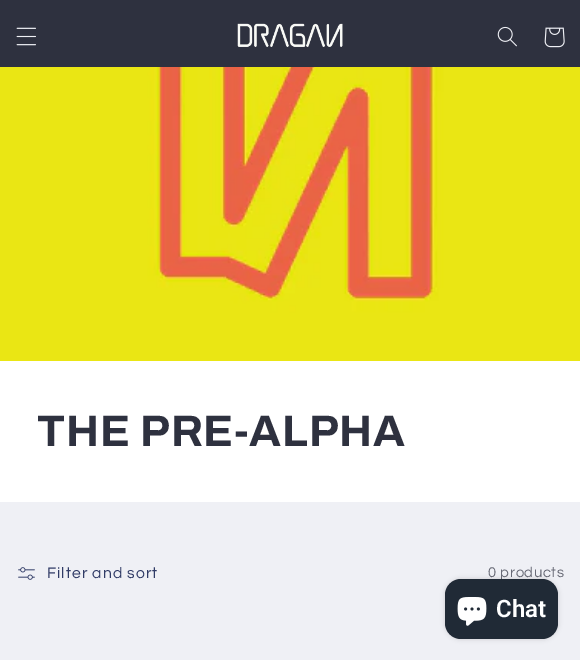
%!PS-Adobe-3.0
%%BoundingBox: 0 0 580 660
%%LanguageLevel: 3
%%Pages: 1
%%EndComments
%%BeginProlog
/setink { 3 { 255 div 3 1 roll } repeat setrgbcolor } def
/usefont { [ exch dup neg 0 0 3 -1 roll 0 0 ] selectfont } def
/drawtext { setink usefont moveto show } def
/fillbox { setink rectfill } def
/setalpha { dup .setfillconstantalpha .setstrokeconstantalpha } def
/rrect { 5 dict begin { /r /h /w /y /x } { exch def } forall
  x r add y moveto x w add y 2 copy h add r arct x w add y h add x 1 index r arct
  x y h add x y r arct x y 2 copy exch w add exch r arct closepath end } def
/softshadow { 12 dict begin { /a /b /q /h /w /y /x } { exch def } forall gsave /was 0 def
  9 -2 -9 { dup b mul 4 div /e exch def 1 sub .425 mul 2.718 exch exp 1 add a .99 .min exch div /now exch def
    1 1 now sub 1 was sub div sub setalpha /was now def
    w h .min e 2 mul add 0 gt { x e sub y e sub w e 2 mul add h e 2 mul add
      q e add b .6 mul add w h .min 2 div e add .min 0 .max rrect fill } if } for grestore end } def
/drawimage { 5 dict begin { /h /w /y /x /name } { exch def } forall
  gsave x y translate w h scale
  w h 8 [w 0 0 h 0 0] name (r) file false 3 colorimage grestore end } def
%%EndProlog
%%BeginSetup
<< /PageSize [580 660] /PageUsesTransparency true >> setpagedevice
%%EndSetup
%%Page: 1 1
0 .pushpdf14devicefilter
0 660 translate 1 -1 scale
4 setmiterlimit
0 0 580 660 239 240 245 fillbox
0 0 580 67 46 49 63 fillbox
(assets/img1.rgb) 16 27 20 19 drawimage
(assets/img2.rgb) 237 23 106 24 drawimage
(assets/img3.rgb) 497 26 20 21 drawimage
(assets/img4.rgb) 544 27 21 21 drawimage
(assets/img5.rgb) 0 67 580 294 drawimage
0 361 580 141 255 255 255 fillbox
/Archivo-Bold 44 usefont
46 49 63 setink
37 446 moveto 0.7 0 (THE PRE-ALPHA) ashow
(assets/img6.rgb) 18 567 17 13 drawimage
/Questrial-Regular 15.75 usefont
48 59 102 setink
47 578 moveto 1 0 (Filter and sort) ashow
/Questrial-Regular 14.75 usefont
104 106 118 setink
488 577 moveto 0.6 0 (0 products) ashow
0 0 0 setink
445 579 113 60 16 2.5 0.15 softshadow
32 42 54 setink
445 579 113 60 16 rrect fill
(assets/img7.rgb) 457 597 30 29 drawimage
(Chat) 496 617 /Roboto-SemiBold 24 255 255 255 drawtext
.poppdf14devicefilter showpage
%%EOF
